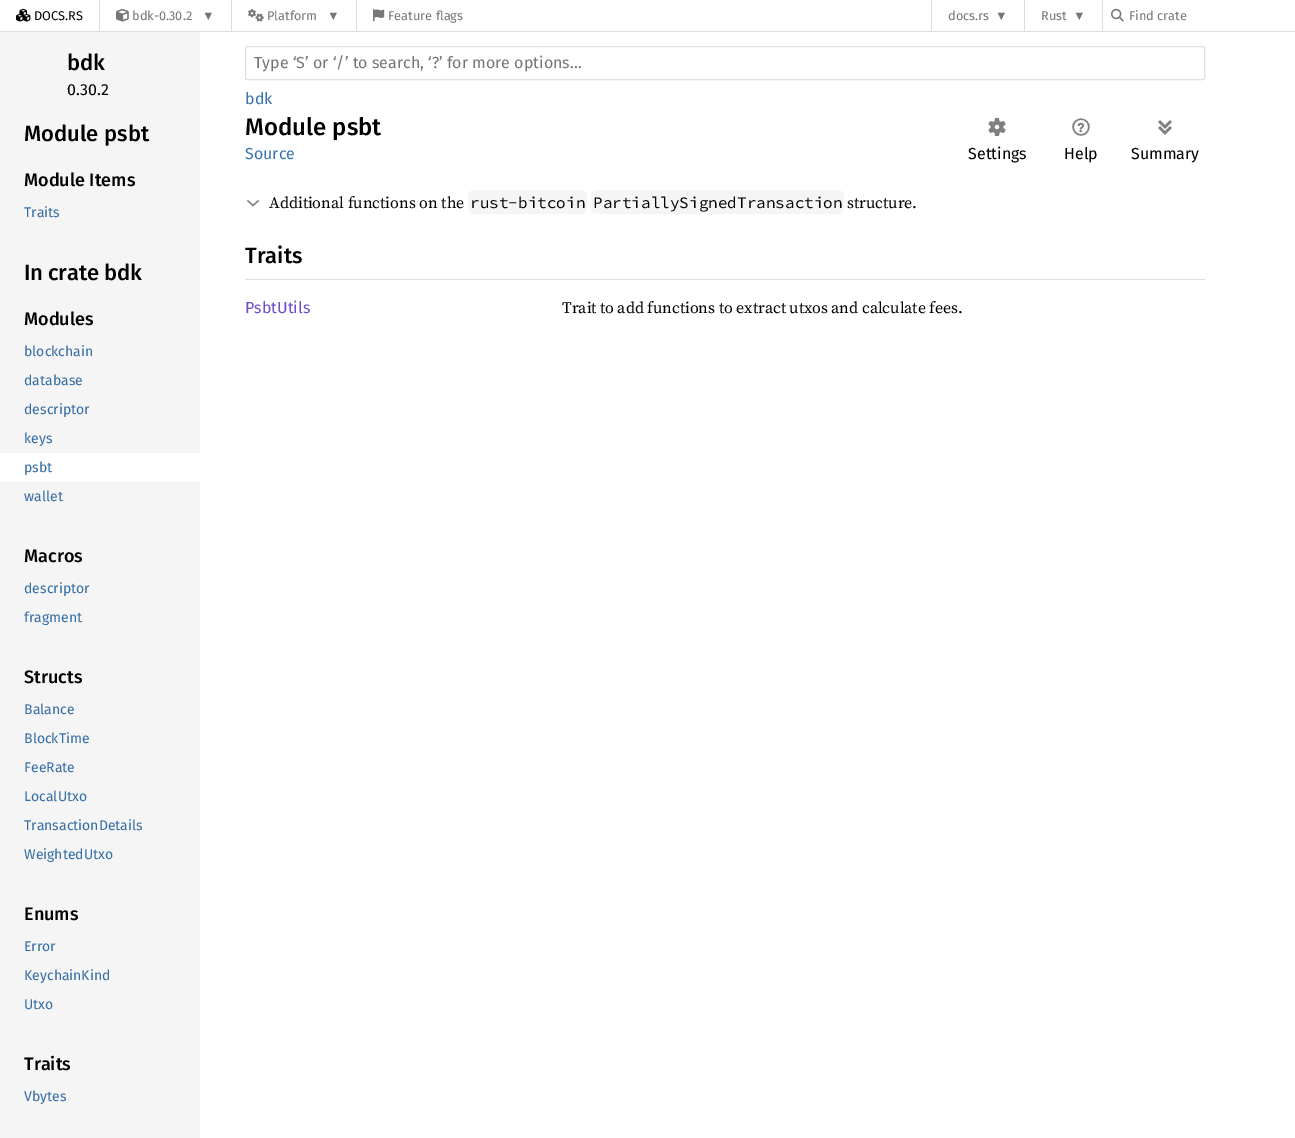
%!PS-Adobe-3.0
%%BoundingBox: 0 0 1295 1138
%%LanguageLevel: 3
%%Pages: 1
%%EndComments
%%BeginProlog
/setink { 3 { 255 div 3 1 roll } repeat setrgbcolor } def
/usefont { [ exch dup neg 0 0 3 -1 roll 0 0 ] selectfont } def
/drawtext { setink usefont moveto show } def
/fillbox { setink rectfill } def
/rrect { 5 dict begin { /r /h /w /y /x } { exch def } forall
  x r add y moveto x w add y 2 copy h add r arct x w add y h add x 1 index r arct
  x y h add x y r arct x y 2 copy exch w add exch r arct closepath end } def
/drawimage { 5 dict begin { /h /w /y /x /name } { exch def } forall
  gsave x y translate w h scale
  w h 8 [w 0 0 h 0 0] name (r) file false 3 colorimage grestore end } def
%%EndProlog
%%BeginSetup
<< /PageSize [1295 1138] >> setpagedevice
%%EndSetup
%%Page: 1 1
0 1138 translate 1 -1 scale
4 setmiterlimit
0 0 1295 1138 255 255 255 fillbox
0 31 1295 1 221 221 221 fillbox
(assets/img1.rgb) 16 8 15 14 drawimage
(DOCS.RS) 34 20 /FiraSans-Regular 12.75 0 0 0 drawtext
99 0 1 31 221 221 221 fillbox
(assets/img2.rgb) 116 8 13 14 drawimage
(bdk-0.30.2) 132 20 /FiraSans-Regular 12.75 117 117 117 drawtext
(▼) 202 20 /LiberationSans-Regular 12.75 117 117 117 drawtext
231 0 1 31 221 221 221 fillbox
(assets/img3.rgb) 248 9 16 13 drawimage
(Platform) 267 20 /FiraSans-Regular 12.75 117 117 117 drawtext
(▼) 327 20 /LiberationSans-Regular 12.75 117 117 117 drawtext
356 0 1 31 221 221 221 fillbox
(assets/img4.rgb) 373 8 12 14 drawimage
(Feature flags) 388 20 /FiraSans-Regular 12.75 117 117 117 drawtext
931 0 1 31 221 221 221 fillbox
(docs.rs) 948 20 /FiraSans-Regular 12.75 117 117 117 drawtext
(▼) 995 20 /LiberationSans-Regular 12.75 117 117 117 drawtext
1024 0 1 31 221 221 221 fillbox
(Rust) 1041 20 /FiraSans-Regular 12.75 117 117 117 drawtext
(▼) 1073 20 /LiberationSans-Regular 12.75 117 117 117 drawtext
1102 0 1 31 221 221 221 fillbox
(assets/img5.rgb) 1111 8 13 14 drawimage
(Find crate) 1129 20 /FiraSans-Regular 12.75 117 117 117 drawtext
0 32 200 1106 245 245 245 fillbox
(bdk) 67 70 /FiraSans-Medium 22 0 0 0 drawtext
(0.30.2) 67 95 /FiraSans-Regular 16 0 0 0 drawtext
(Module psbt) 24 141 /FiraSans-Medium 22 0 0 0 drawtext
(Module Items) 24 186 /FiraSans-Medium 18 0 0 0 drawtext
(Traits) 24 217 /FiraSans-Regular 14 53 109 164 drawtext
/FiraSans-Medium 22 usefont
0 0 0 setink
24 280 moveto -1 0 32 (In crate bdk) widthshow
(Modules) 24 325 /FiraSans-Medium 18 0 0 0 drawtext
(blockchain) 24 356 /FiraSans-Regular 14 53 109 164 drawtext
(database) 24 385 /FiraSans-Regular 14 53 109 164 drawtext
(descriptor) 24 414 /FiraSans-Regular 14 53 109 164 drawtext
(keys) 24 443 /FiraSans-Regular 14 53 109 164 drawtext
0 453 200 29 255 255 255 fillbox
(psbt) 24 472 /FiraSans-Regular 14 53 109 164 drawtext
(wallet) 24 501 /FiraSans-Regular 14 53 109 164 drawtext
(Macros) 24 562 /FiraSans-Medium 18 0 0 0 drawtext
(descriptor) 24 593 /FiraSans-Regular 14 53 109 164 drawtext
(fragment) 24 622 /FiraSans-Regular 14 53 109 164 drawtext
(Structs) 24 683 /FiraSans-Medium 18 0 0 0 drawtext
(Balance) 24 714 /FiraSans-Regular 14 53 109 164 drawtext
(BlockTime) 24 743 /FiraSans-Regular 14 53 109 164 drawtext
(FeeRate) 24 772 /FiraSans-Regular 14 53 109 164 drawtext
(LocalUtxo) 24 801 /FiraSans-Regular 14 53 109 164 drawtext
(TransactionDetails) 24 830 /FiraSans-Regular 14 53 109 164 drawtext
(WeightedUtxo) 24 859 /FiraSans-Regular 14 53 109 164 drawtext
(Enums) 24 920 /FiraSans-Medium 18 0 0 0 drawtext
(Error) 24 951 /FiraSans-Regular 14 53 109 164 drawtext
(KeychainKind) 24 980 /FiraSans-Regular 14 53 109 164 drawtext
(Utxo) 24 1009 /FiraSans-Regular 14 53 109 164 drawtext
(Traits) 24 1070 /FiraSans-Medium 18 0 0 0 drawtext
(Vbytes) 24 1101 /FiraSans-Regular 14 53 109 164 drawtext
224 224 224 setink
245.5 46.5 959 33 1.5 rrect stroke
(Type ‘S’ or ‘/’ to search, ‘?’ for more options…) 254 68 /FiraSans-Regular 16 117 117 117 drawtext
(bdk) 245 104 /FiraSans-Regular 16 56 115 173 drawtext
(Module psbt) 245 135 /FiraSans-Medium 24 0 0 0 drawtext
(Source) 245 159 /FiraSans-Regular 16 56 115 173 drawtext
(assets/img6.rgb) 988 118 18 18 drawimage
(Settings) 968 159 /FiraSans-Regular 16 0 0 0 drawtext
(assets/img7.rgb) 1072 118 18 18 drawimage
(Help) 1064 159 /FiraSans-Regular 16 0 0 0 drawtext
(assets/img8.rgb) 1158 120 14 15 drawimage
(Summary) 1131 159 /FiraSans-Regular 16 0 0 0 drawtext
128 128 128 setink
1.3 setlinewidth
247.5 200.5 moveto 253 205.5 lineto 258.5 200.5 lineto stroke
(Additional functions on the) 269 208 /SourceSerif4-Regular 16 0 0 0 drawtext
245 245 245 setink
468 190 119 24 6 rrect fill
(rust-bitcoin) 470 208 /SourceCodePro-Regular 16 0 0 0 drawtext
245 245 245 setink
591 190 253 24 6 rrect fill
(PartiallySignedTransaction) 593 208 /SourceCodePro-Regular 16 0 0 0 drawtext
(structure.) 847 208 /SourceSerif4-Regular 16 0 0 0 drawtext
245 279 960 1 221 221 221 fillbox
(Traits) 245 263 /FiraSans-Medium 22 0 0 0 drawtext
(PsbtUtils) 245 313 /FiraSans-Regular 16 110 79 201 drawtext
/SourceSerif4-Regular 16 usefont
0 0 0 setink
562 313 moveto -0.25 0 32 (Trait to add functions to extract utxos and calculate fees.) widthshow
showpage
%%EOF
